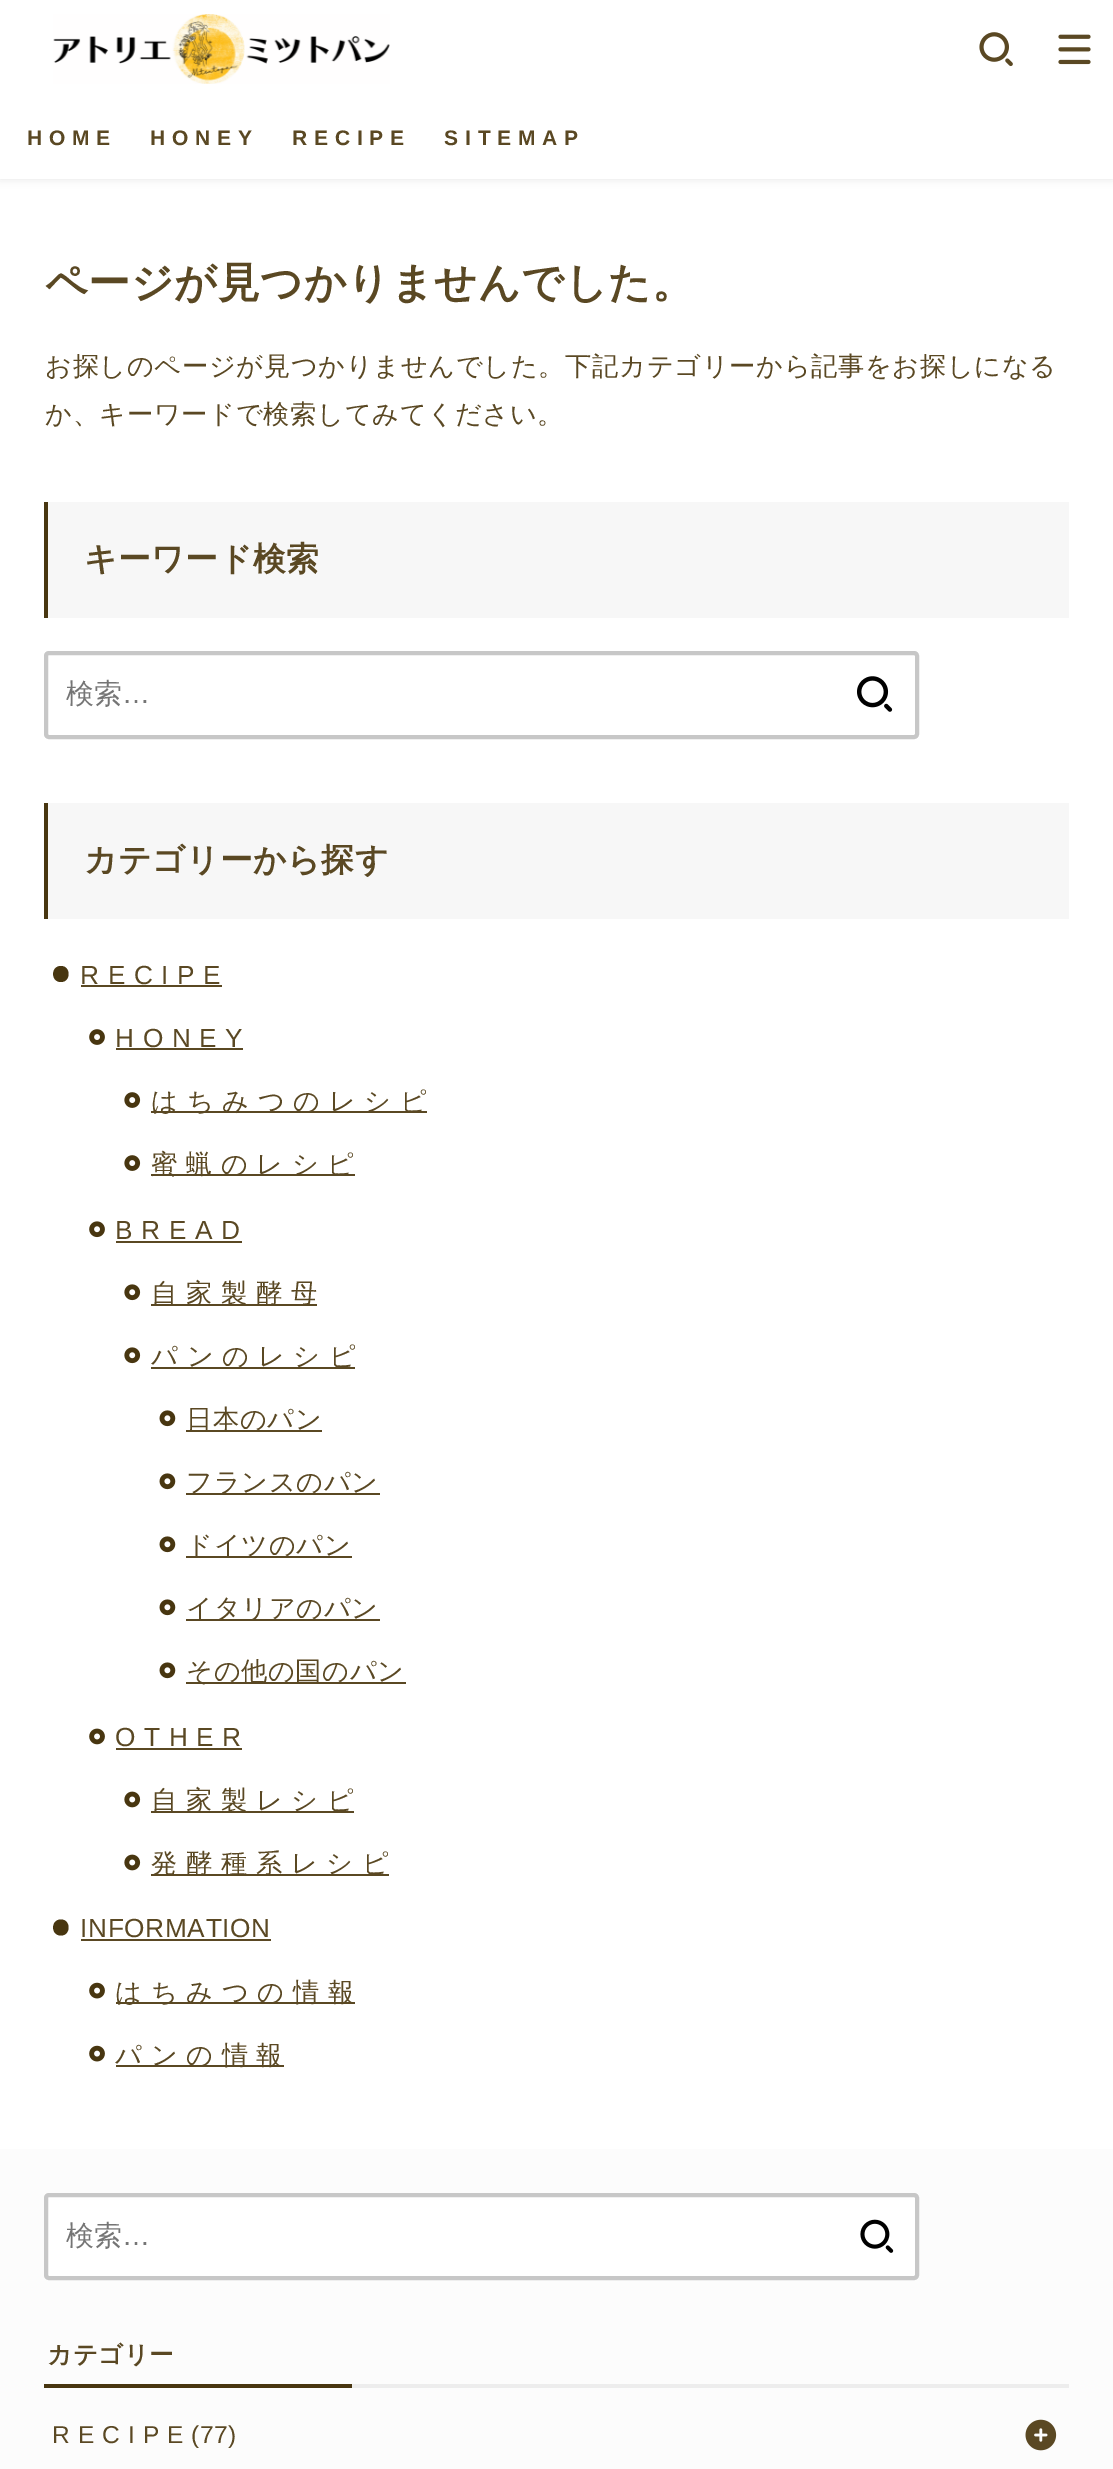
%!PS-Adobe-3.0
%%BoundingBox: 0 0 1113 2469
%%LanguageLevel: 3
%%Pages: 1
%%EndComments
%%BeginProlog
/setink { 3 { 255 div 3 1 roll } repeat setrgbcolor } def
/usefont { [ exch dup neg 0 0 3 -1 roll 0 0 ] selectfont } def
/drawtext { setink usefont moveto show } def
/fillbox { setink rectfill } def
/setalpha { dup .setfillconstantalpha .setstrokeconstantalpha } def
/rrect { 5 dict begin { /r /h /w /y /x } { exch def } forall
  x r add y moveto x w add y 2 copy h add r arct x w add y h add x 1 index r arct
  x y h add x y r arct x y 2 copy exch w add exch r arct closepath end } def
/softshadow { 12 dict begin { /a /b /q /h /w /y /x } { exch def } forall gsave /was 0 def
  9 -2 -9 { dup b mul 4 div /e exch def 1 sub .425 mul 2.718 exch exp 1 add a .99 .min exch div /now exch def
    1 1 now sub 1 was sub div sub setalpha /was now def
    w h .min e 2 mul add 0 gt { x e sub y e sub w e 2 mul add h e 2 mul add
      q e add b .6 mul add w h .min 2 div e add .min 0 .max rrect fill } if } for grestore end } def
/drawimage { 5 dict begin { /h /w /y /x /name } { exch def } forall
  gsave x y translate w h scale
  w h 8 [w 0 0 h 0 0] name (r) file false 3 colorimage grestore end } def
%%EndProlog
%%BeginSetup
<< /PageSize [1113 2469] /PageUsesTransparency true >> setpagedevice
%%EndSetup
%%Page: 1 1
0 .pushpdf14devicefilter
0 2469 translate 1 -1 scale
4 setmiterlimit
0 0 1113 2469 255 255 255 fillbox
0 0 0 setink
0 0 1113 179 0 4.5 0.1 softshadow
0 0 1113 179 255 255 255 fillbox
(assets/img1.rgb) 53 14 337 70 drawimage
(assets/img2.rgb) 979 32 34 35 drawimage
(assets/img3.rgb) 1058 34 33 31 drawimage
/LiberationSans-Bold 21 usefont
90 72 35 setink
27 145 moveto 0.5 0 (H O M E) ashow
150 145 moveto 0.5 0 (H O N E Y) ashow
292 145 moveto 0.5 0 (R E C I P E) ashow
444 145 moveto 0.5 0 (S I T E M A P) ashow
/WenQuanYiZenHei-Bold 42 usefont
45 297 moveto 0.5 0 (ページが見つかりませんでした。) ashow
/WenQuanYiZenHei-Medium 26.25 usefont
45 375 moveto 0.65 0 (お探しのページが見つかりませんでした。下記カテゴリーから記事をお探しになる) ashow
45 423 moveto 0.65 0 (か、キーワードで検索してみてください。) ashow
48 502 1021 116 247 247 247 fillbox
44 502 4 116 72 54 16 fillbox
/WenQuanYiZenHei-Bold 32.75 usefont
90 72 35 setink
84 570 moveto 0.5 0 (キーワード検索) ashow
199 199 199 setink
4 setlinewidth
46 653 871 84 3 rrect stroke
(検索) 66 703 /WenQuanYiZenHei-Medium 28 117 117 117 drawtext
(…) 122 703 /LiberationSans-Regular 28 117 117 117 drawtext
(assets/img4.rgb) 857 676 36 36 drawimage
48 803 1021 116 247 247 247 fillbox
44 803 4 116 72 54 16 fillbox
/WenQuanYiZenHei-Bold 32.75 usefont
90 72 35 setink
84 871 moveto 0.5 0 (カテゴリーから探す) ashow
72 54 16 setink
61 982 moveto 71 982 71 966 61 966 curveto 50.5 966 50.5 982 61 982 curveto closepath fill
/LiberationSans-Regular 26.25 usefont
90 72 35 setink
80 984 moveto 0.65 0 (R E C I P E) ashow
81 985 141 2 90 72 35 fillbox
(assets/img5.rgb) 89 1029 16 16 drawimage
115 1047 moveto 0.65 0 (H O N E Y) ashow
116 1048 127 2 90 72 35 fillbox
(assets/img6.rgb) 124 1092 17 16 drawimage
151 1111 276 2 90 72 35 fillbox
/WenQuanYiZenHei-Medium 26.25 usefont
151 1110 moveto -0.5 0 32 0.65 0 (は ち み つ の レ シ ピ) awidthshow
(assets/img7.rgb) 124 1155 17 16 drawimage
151 1174 204 2 90 72 35 fillbox
151 1173 moveto -0.5 0 32 0.65 0 (蜜 蝋 の レ シ ピ) awidthshow
(assets/img8.rgb) 89 1221 16 17 drawimage
/LiberationSans-Regular 26.25 usefont
115 1239 moveto 0.65 0 (B R E A D) ashow
116 1241 126 2 90 72 35 fillbox
(assets/img9.rgb) 124 1284 17 17 drawimage
151 1304 166 2 90 72 35 fillbox
/WenQuanYiZenHei-Medium 26.25 usefont
151 1302 moveto -0.5 0 32 0.65 0 (自 家 製 酵 母) awidthshow
(assets/img10.rgb) 124 1347 17 17 drawimage
151 1367 204 2 90 72 35 fillbox
151 1365 moveto -0.5 0 32 0.65 0 (パ ン の レ シ ピ) awidthshow
(assets/img11.rgb) 159 1410 17 17 drawimage
186 1430 136 2 90 72 35 fillbox
186 1428 moveto 0.65 0 (日本のパン) ashow
(assets/img12.rgb) 159 1473 17 17 drawimage
186 1493 194 2 90 72 35 fillbox
186 1491 moveto 0.65 0 (フランスのパン) ashow
(assets/img13.rgb) 159 1536 17 17 drawimage
186 1556 166 2 90 72 35 fillbox
186 1554 moveto 0.65 0 (ドイツのパン) ashow
(assets/img14.rgb) 159 1599 17 17 drawimage
186 1619 194 2 90 72 35 fillbox
186 1617 moveto 0.65 0 (イタリアのパン) ashow
(assets/img15.rgb) 159 1662 17 17 drawimage
186 1682 220 2 90 72 35 fillbox
186 1680 moveto 0.65 0 (その他の国のパン) ashow
(assets/img16.rgb) 89 1728 16 17 drawimage
/LiberationSans-Regular 26.25 usefont
115 1746 moveto 0.65 0 (O T H E R) ashow
116 1748 126 2 90 72 35 fillbox
(assets/img17.rgb) 124 1791 17 17 drawimage
151 1811 203 2 90 72 35 fillbox
/WenQuanYiZenHei-Medium 26.25 usefont
151 1809 moveto -0.5 0 32 0.65 0 (自 家 製 レ シ ピ) awidthshow
(assets/img18.rgb) 124 1854 17 17 drawimage
151 1874 238 2 90 72 35 fillbox
151 1872 moveto -0.5 0 32 0.65 0 (発 酵 種 系 レ シ ピ) awidthshow
72 54 16 setink
61 1935.5 moveto 71 1935.5 71 1919.5 61 1919.5 curveto 50.5 1919.5 50.5 1935.5 61 1935.5 curveto closepath fill
/LiberationSans-Regular 26.25 usefont
90 72 35 setink
80 1937 moveto 0.65 0 (INFORMATION) ashow
81 1939 190 2 90 72 35 fillbox
(assets/img19.rgb) 89 1982 16 17 drawimage
116 2002 239 2 90 72 35 fillbox
/WenQuanYiZenHei-Medium 26.25 usefont
115 2001 moveto -0.5 0 32 0.65 0 (は ち み つ の 情 報) awidthshow
(assets/img20.rgb) 89 2045 16 17 drawimage
116 2065 168 2 90 72 35 fillbox
115 2064 moveto -0.5 0 32 0.65 0 (パ ン の 情 報) awidthshow
0 2149 1113 320 252 252 252 fillbox
255 255 255 setink
46 2195 871 83 3 rrect gsave fill grestore
199 199 199 setink
stroke
(検索) 66 2245 /WenQuanYiZenHei-Medium 28 117 117 117 drawtext
(…) 122 2245 /LiberationSans-Regular 28 117 117 117 drawtext
(assets/img21.rgb) 860 2219 34 34 drawimage
352 2384 717 4 237 237 237 fillbox
/WenQuanYiZenHei-Bold 24.5 usefont
90 72 35 setink
47 2363 moveto 0.5 0 (カテゴリー) ashow
44 2384 308 4 72 54 16 fillbox
/LiberationSans-Regular 24.5 usefont
90 72 35 setink
52 2443 moveto 0.6 0 (R E C I P E \(77\)) ashow
(assets/img22.rgb) 1025 2419 32 32 drawimage
.poppdf14devicefilter showpage
%%EOF
